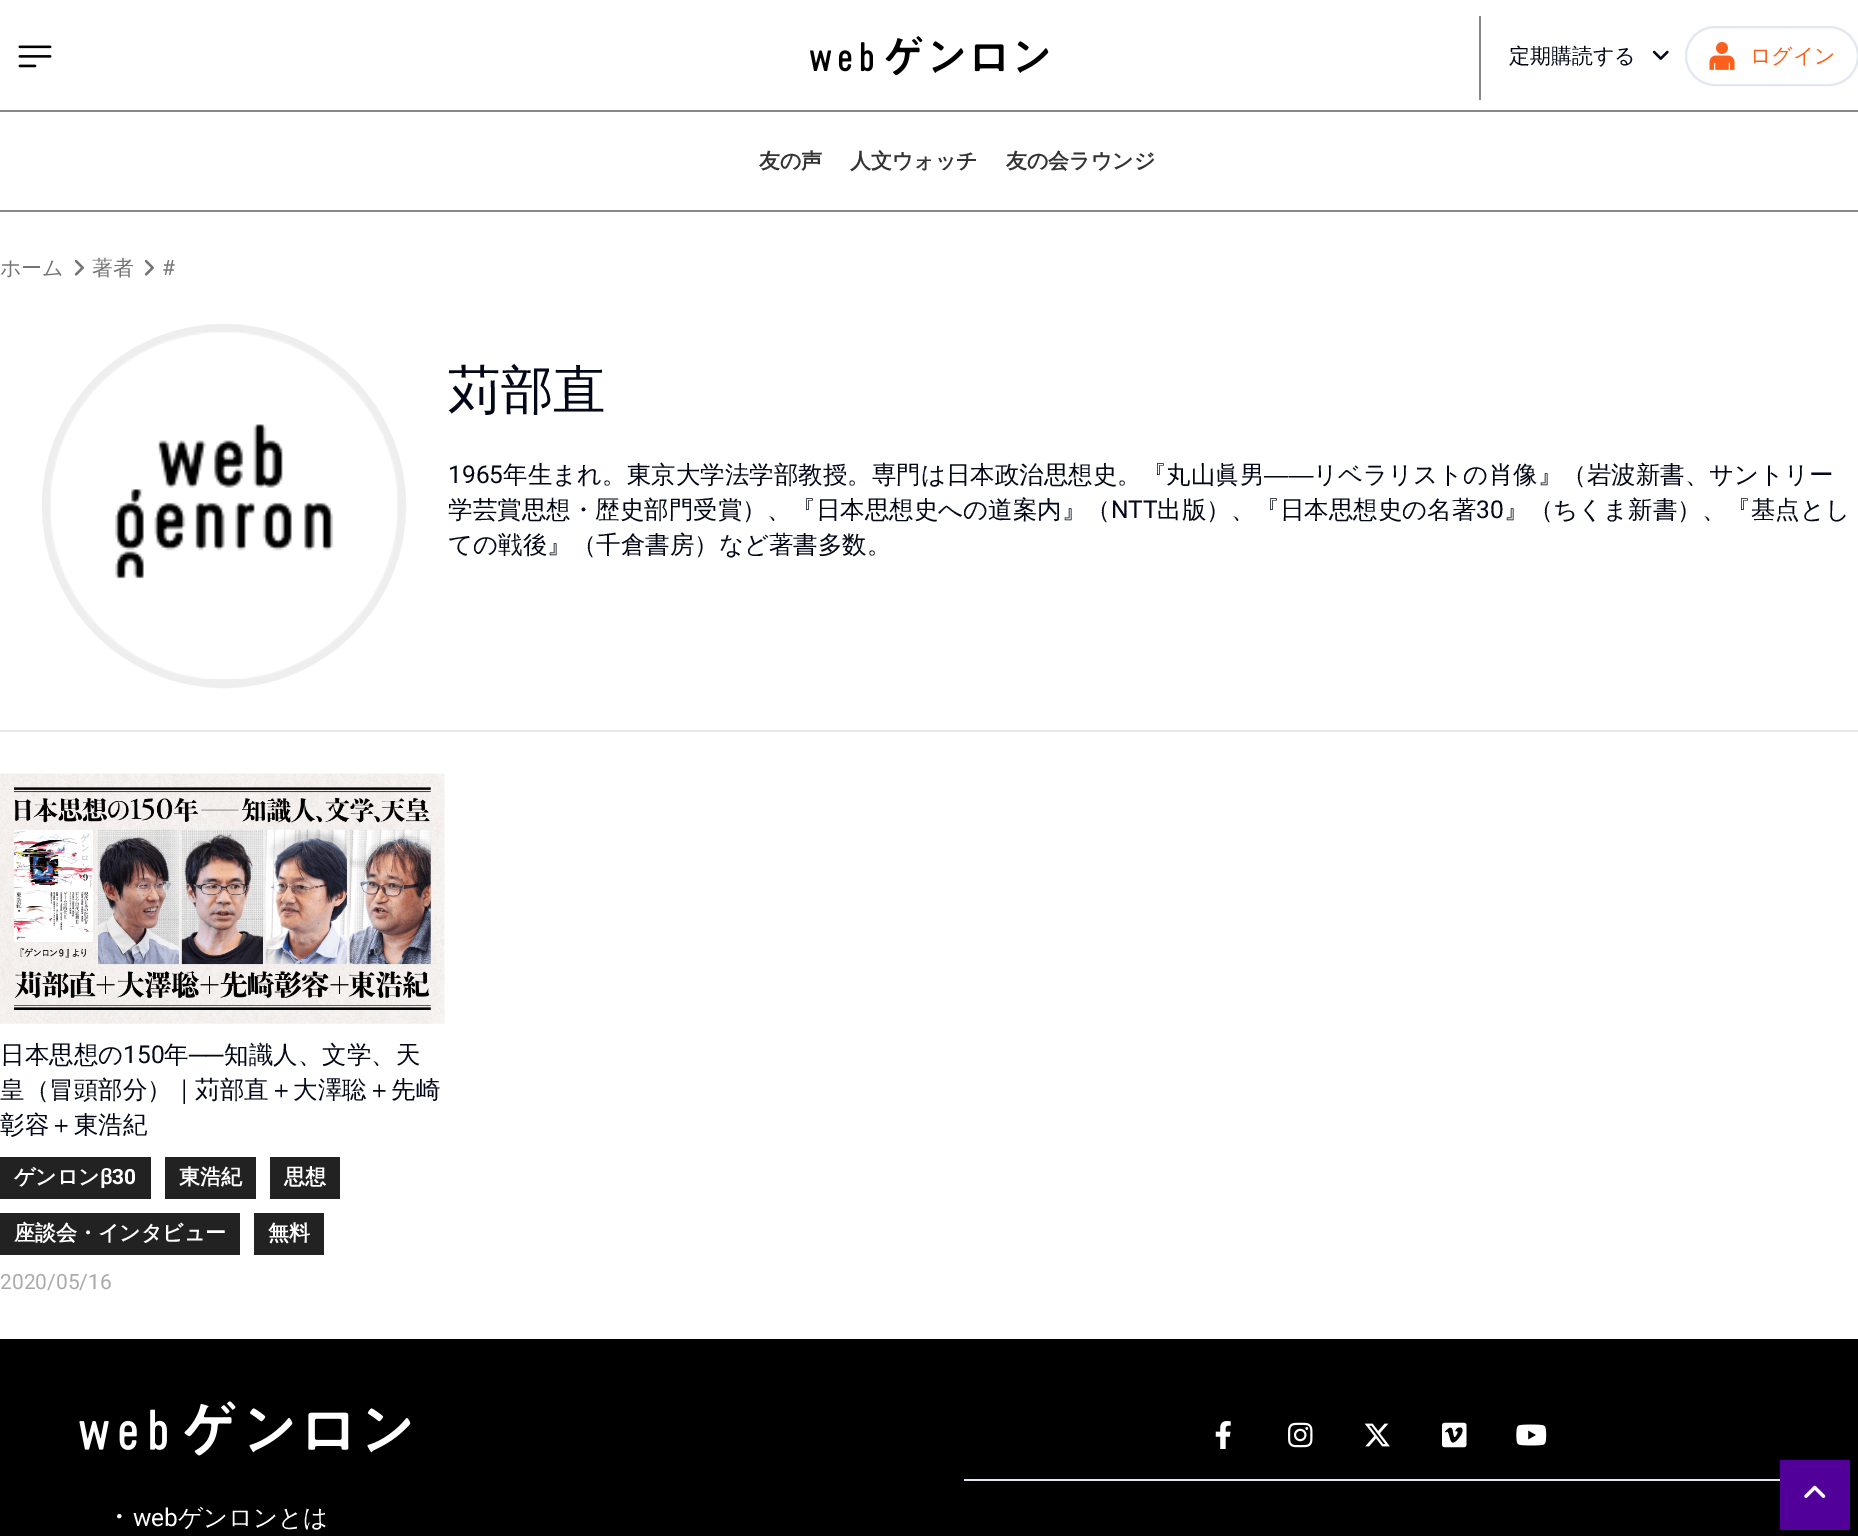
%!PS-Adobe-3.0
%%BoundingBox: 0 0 1858 1536
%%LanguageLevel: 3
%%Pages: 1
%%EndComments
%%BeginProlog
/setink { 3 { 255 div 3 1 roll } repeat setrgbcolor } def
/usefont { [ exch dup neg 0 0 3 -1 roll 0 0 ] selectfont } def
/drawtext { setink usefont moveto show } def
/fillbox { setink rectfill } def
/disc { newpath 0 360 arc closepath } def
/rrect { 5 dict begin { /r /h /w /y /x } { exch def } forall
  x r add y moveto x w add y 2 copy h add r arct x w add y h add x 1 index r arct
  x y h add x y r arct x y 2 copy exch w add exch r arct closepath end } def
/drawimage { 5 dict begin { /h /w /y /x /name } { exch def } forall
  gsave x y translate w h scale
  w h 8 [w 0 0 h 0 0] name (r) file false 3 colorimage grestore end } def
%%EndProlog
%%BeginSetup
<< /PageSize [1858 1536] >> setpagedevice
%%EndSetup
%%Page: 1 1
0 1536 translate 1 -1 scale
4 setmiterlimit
0 0 1858 1536 255 255 255 fillbox
0 210 1858 2 136 136 136 fillbox
(assets/img1.rgb) 18 45 34 23 drawimage
(assets/img2.rgb) 810 36 239 40 drawimage
1479 16 2 84 136 136 136 fillbox
(定期購読する) 1509 63 /WenQuanYiZenHei-Medium 21 2 8 23 drawtext
(assets/img3.rgb) 1652 50 17 10 drawimage
226 232 240 setink
2 setlinewidth
1686 27 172 58 29 rrect stroke
(assets/img4.rgb) 1709 42 26 28 drawimage
(ログイン) 1750 63 /WenQuanYiZenHei-Medium 21 251 96 29 drawtext
0 110 1858 2 136 136 136 fillbox
(友の声) 759 168 /WenQuanYiZenHei-Bold 21 51 51 51 drawtext
(人文ウォッチ) 850 168 /WenQuanYiZenHei-Bold 21 51 51 51 drawtext
(友の会ラウンジ) 1006 168 /WenQuanYiZenHei-Bold 21 51 51 51 drawtext
(ホーム) 0 275 /WenQuanYiZenHei-Medium 21 116 116 116 drawtext
(assets/img5.rgb) 74 259 10 17 drawimage
(著者) 92 275 /WenQuanYiZenHei-Medium 21 116 116 116 drawtext
(assets/img5.rgb) 144 259 10 17 drawimage
(#) 162 275 /Roboto-Regular 21 116 116 116 drawtext
238 238 238 setink
9 setlinewidth
224 506 177.5 disc stroke
(assets/img6.rgb) 50 332 348 347 drawimage
(苅部直) 448 408 /WenQuanYiZenHei-Medium 52.5 2 8 23 drawtext
(1965) 448 483 /Roboto-Regular 24.5 2 8 23 drawtext
(年生まれ。東京大学法学部教授。専門は日本政治思想史。『丸山眞男) 503 483 /WenQuanYiZenHei-Medium 24.5 2 8 23 drawtext
(――) 1264 483 /LiberationSans-Regular 24.5 2 8 23 drawtext
(リベラリストの肖像』（岩波新書、サントリー) 1313 483 /WenQuanYiZenHei-Medium 24.5 2 8 23 drawtext
(学芸賞思想・歴史部門受賞）、『日本思想史への道案内』（) 448 518 /WenQuanYiZenHei-Medium 24.5 2 8 23 drawtext
(NTT) 1111 518 /Roboto-Regular 24.5 2 8 23 drawtext
(出版）、『日本思想史の名著) 1157 518 /WenQuanYiZenHei-Medium 24.5 2 8 23 drawtext
(30) 1476 518 /Roboto-Regular 24.5 2 8 23 drawtext
(』（ちくま新書）、『基点とし) 1504 518 /WenQuanYiZenHei-Medium 24.5 2 8 23 drawtext
(ての戦後』（千倉書房）など著書多数。) 448 553 /WenQuanYiZenHei-Medium 24.5 2 8 23 drawtext
0 730 1858 2 229 231 235 fillbox
(assets/img7.rgb) 0 773 445 251 drawimage
(日本思想の) 0 1063 /WenQuanYiZenHei-Medium 24.5 2 8 23 drawtext
(150) 123 1063 /Roboto-Regular 24.5 2 8 23 drawtext
(年) 164 1063 /WenQuanYiZenHei-Medium 24.5 2 8 23 drawtext
(──) 189 1063 /LiberationSans-Regular 24.5 2 8 23 drawtext
(知識人、文学、天) 224 1063 /WenQuanYiZenHei-Medium 24.5 2 8 23 drawtext
(皇（冒頭部分）｜苅部直＋大澤聡＋先崎) 0 1098 /WenQuanYiZenHei-Medium 24.5 2 8 23 drawtext
(彰容＋東浩紀) 0 1133 /WenQuanYiZenHei-Medium 24.5 2 8 23 drawtext
0 1157 151 42 34 34 34 fillbox
(ゲンロンβ) 14 1184 /WenQuanYiZenHei-Bold 21 255 255 255 drawtext
(30) 112 1184 /Roboto-Bold 21 255 255 255 drawtext
165 1157 91 42 34 34 34 fillbox
(東浩紀) 179 1184 /WenQuanYiZenHei-Bold 21 255 255 255 drawtext
270 1157 70 42 34 34 34 fillbox
(思想) 284 1184 /WenQuanYiZenHei-Bold 21 255 255 255 drawtext
0 1213 240 42 34 34 34 fillbox
(座談会・インタビュー) 14 1240 /WenQuanYiZenHei-Bold 21 255 255 255 drawtext
254 1213 70 42 34 34 34 fillbox
(無料) 268 1240 /WenQuanYiZenHei-Bold 21 255 255 255 drawtext
(2020/05/16) 0 1289 /Roboto-Regular 21 170 170 170 drawtext
0 1339 1858 197 0 0 0 fillbox
(assets/img8.rgb) 1215 1421 16 28 drawimage
(assets/img9.rgb) 1288 1422 25 26 drawimage
(assets/img10.rgb) 1364 1423 26 24 drawimage
(assets/img11.rgb) 1442 1422 25 26 drawimage
(assets/img12.rgb) 1516 1424 31 22 drawimage
964 1479 816 2 226 232 240 fillbox
(assets/img13.rgb) 79 1401 332 55 drawimage
(・) 105 1526 /WenQuanYiZenHei-Medium 28 255 255 255 drawtext
(web) 133 1526 /Roboto-Regular 24.5 255 255 255 drawtext
(ゲンロンとは) 178 1526 /WenQuanYiZenHei-Medium 24.5 255 255 255 drawtext
1780 1460 70 70 81 0 153 fillbox
(assets/img14.rgb) 1804 1485 22 13 drawimage
showpage
%%EOF
